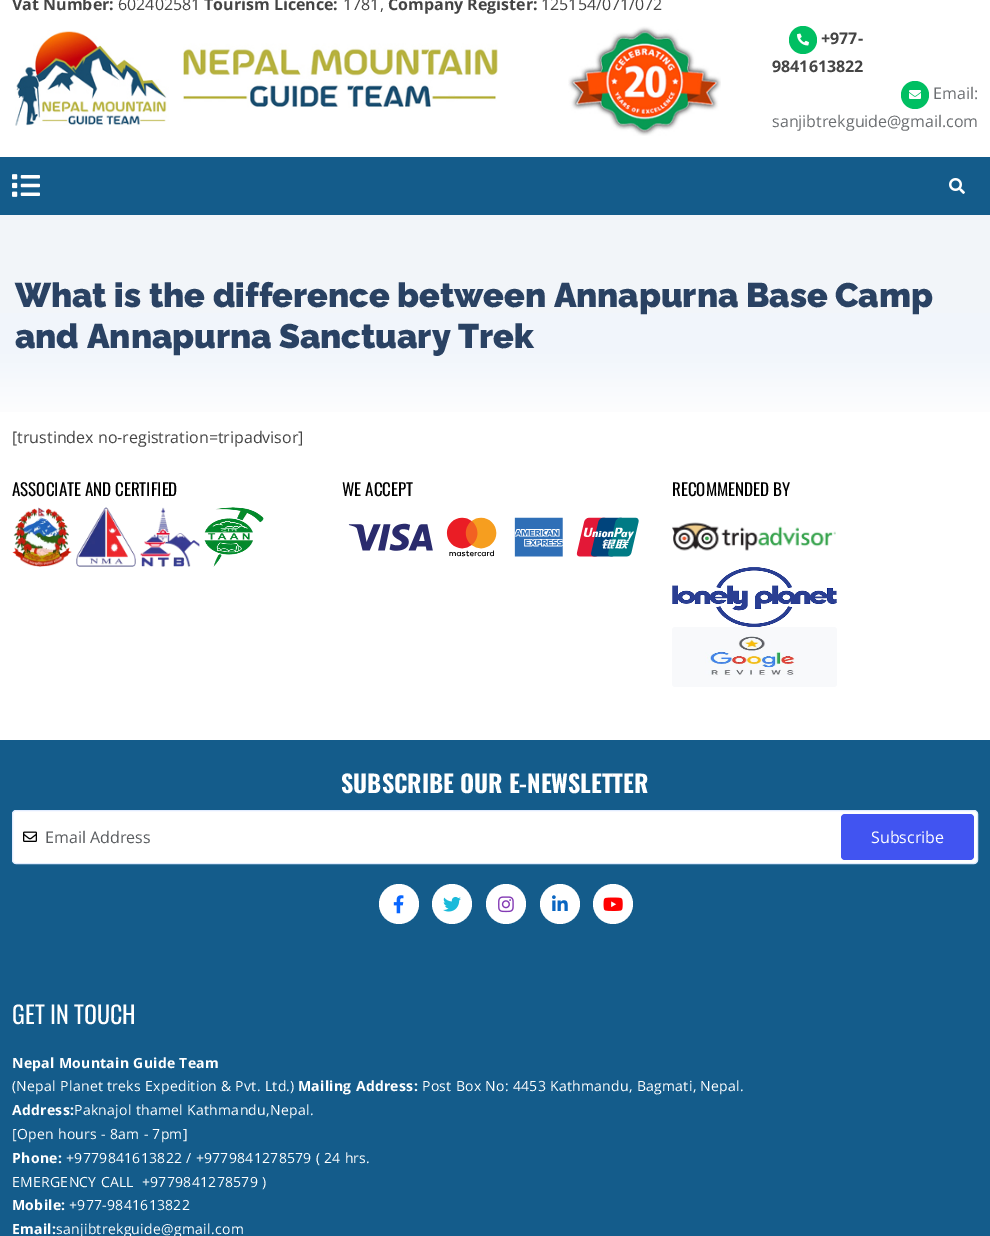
%!PS-Adobe-3.0
%%BoundingBox: 0 0 990 1236
%%LanguageLevel: 3
%%Pages: 1
%%EndComments
%%BeginProlog
/setink { 3 { 255 div 3 1 roll } repeat setrgbcolor } def
/usefont { [ exch dup neg 0 0 3 -1 roll 0 0 ] selectfont } def
/drawtext { setink usefont moveto show } def
/fillbox { setink rectfill } def
/disc { newpath 0 360 arc closepath } def
/rrect { 5 dict begin { /r /h /w /y /x } { exch def } forall
  x r add y moveto x w add y 2 copy h add r arct x w add y h add x 1 index r arct
  x y h add x y r arct x y 2 copy exch w add exch r arct closepath end } def
/drawimage { 5 dict begin { /h /w /y /x /name } { exch def } forall
  gsave x y translate w h scale
  w h 8 [w 0 0 h 0 0] name (r) file false 3 colorimage grestore end } def
%%EndProlog
%%BeginSetup
<< /PageSize [990 1236] >> setpagedevice
%%EndSetup
%%Page: 1 1
0 1236 translate 1 -1 scale
4 setmiterlimit
0 0 990 1236 255 255 255 fillbox
(Vat Number:) 12 10 /OpenSans-Bold 16 68 68 68 drawtext
(602402581) 118 10 /OpenSans-Regular 16 68 68 68 drawtext
(Tourism Licence:) 204 10 /OpenSans-Bold 16 68 68 68 drawtext
(1781,) 343 10 /OpenSans-Regular 16 68 68 68 drawtext
(Company Register:) 388 10 /OpenSans-Bold 16 68 68 68 drawtext
(125154/071/072) 541 10 /OpenSans-Regular 16 68 68 68 drawtext
(assets/img1.rgb) 15 30 483 96 drawimage
(assets/img2.rgb) 568 26 153 110 drawimage
0 191 98 setink
803 40 14 disc fill
(assets/img3.rgb) 797 33 12 13 drawimage
(+977-) 821 44 /OpenSans-Bold 16 68 68 68 drawtext
(9841613822) 772 72 /OpenSans-Bold 16 68 68 68 drawtext
0 191 98 setink
915 95 14 disc fill
(assets/img4.rgb) 909 90 12 9 drawimage
(Email:) 933 99 /OpenSans-Regular 16 107 110 113 drawtext
(sanjibtrekguide@gmail.com) 772 127 /OpenSans-Regular 16 107 110 113 drawtext
0 157 990 58 20 92 139 fillbox
(assets/img5.rgb) 12 174 28 23 drawimage
(assets/img6.rgb) 949 178 16 16 drawimage
gsave 0 215 moveto 990 215 lineto 990 412 lineto 0 412 lineto closepath clip newpath
<< /ShadingType 2 /ColorSpace /DeviceRGB /Coords [495 425 495 215] /Extend [true true] /Function << /FunctionType 3 /Domain [0 1] /Functions [<< /FunctionType 2 /Domain [0 1] /C0 [1 1 1] /C1 [0.945 0.961 0.984] /N 1 >> << /FunctionType 2 /Domain [0 1] /C0 [0.945 0.961 0.984] /C1 [0.953 0.961 0.976] /N 1 >>] /Bounds [0.35] /Encode [0 1 0 1] >> >> shfill grestore
(What is the difference between Annapurna Base Camp) 15 307 /Raleway-Black 34 42 66 99 drawtext
(and Annapurna Sanctuary Trek) 15 348 /Raleway-Black 34 42 66 99 drawtext
([trustindex no-registration=tripadvisor]) 12 443 /OpenSans-Regular 16 68 68 68 drawtext
(ASSOCIATE AND CERTIFIED) 12 496 /Oswald-Regular 17 0 0 0 drawtext
(assets/img7.rgb) 12 507 60 60 drawimage
(assets/img8.rgb) 76 507 60 60 drawimage
(assets/img9.rgb) 140 507 60 60 drawimage
(assets/img10.rgb) 204 507 60 60 drawimage
(WE ACCEPT) 342 496 /Oswald-Regular 17 0 0 0 drawtext
(assets/img11.rgb) 348 517 291 40 drawimage
(RECOMMENDED BY) 672 496 /Oswald-Regular 17 0 0 0 drawtext
(assets/img12.rgb) 672 522 164 29 drawimage
(assets/img13.rgb) 672 567 165 60 drawimage
(assets/img14.rgb) 672 627 165 60 drawimage
0 740 990 496 20 92 139 fillbox
(SUBSCRIBE OUR E-NEWSLETTER) 341 793 /Oswald-Bold 24 255 255 255 drawtext
12.5 810.5 965 53 3.5 rrect gsave fill grestore
225 236 255 setink
stroke
(assets/img15.rgb) 23 831 14 11 drawimage
(Email Address) 45 843 /OpenSans-Regular 16 89 92 95 drawtext
65 84 241 setink
841 814 133 46 4 rrect fill
(Subscribe) 871 843 /OpenSans-Regular 16 255 255 255 drawtext
399 904 20 disc fill
(assets/img16.rgb) 393 895 11 19 drawimage
452 904 20 disc fill
(assets/img17.rgb) 443 896 18 16 drawimage
506 904 20 disc fill
(assets/img18.rgb) 498 896 16 17 drawimage
560 904 20 disc fill
(assets/img19.rgb) 552 895 16 16 drawimage
613 904 20 disc fill
(assets/img20.rgb) 603 897 20 14 drawimage
(GET IN TOUCH) 12 1024 /Oswald-Regular 24 255 255 255 drawtext
/OpenSans-Bold 14 usefont
12 1068 moveto 0.3 0 (Nepal Mountain Guide Team) ashow
/OpenSans-Regular 14 usefont
12 1091 moveto 0.3 0 (\(Nepal Planet treks Expedition & Pvt. Ltd.\)) ashow
/OpenSans-Bold 14 usefont
298 1091 moveto 0.3 0 (Mailing Address:) ashow
/OpenSans-Regular 14 usefont
422 1091 moveto 0.3 0 (Post Box No: 4453 Kathmandu, Bagmati, Nepal.) ashow
/OpenSans-Bold 14 usefont
12 1115 moveto 0.3 0 (Address:) ashow
/OpenSans-Regular 14 usefont
74 1115 moveto 0.3 0 (Paknajol thamel Kathmandu,Nepal.) ashow
12 1139 moveto 0.3 0 ([Open hours - 8am - 7pm]) ashow
/OpenSans-Bold 14 usefont
12 1163 moveto 0.3 0 (Phone:) ashow
/OpenSans-Regular 14 usefont
66 1163 moveto 0.3 0 (+9779841613822 / +9779841278579 \( 24 hrs.) ashow
12 1187 moveto 0.3 0 (EMERGENCY CALL  +9779841278579 \)) ashow
/OpenSans-Bold 14 usefont
12 1210 moveto 0.3 0 (Mobile:) ashow
/OpenSans-Regular 14 usefont
69 1210 moveto 0.3 0 (+977-9841613822) ashow
/OpenSans-Bold 14 usefont
12 1234 moveto 0.3 0 (Email:) ashow
/OpenSans-Regular 14 usefont
56 1234 moveto 0.3 0 (sanjibtrekguide@gmail.com) ashow
showpage
%%EOF
